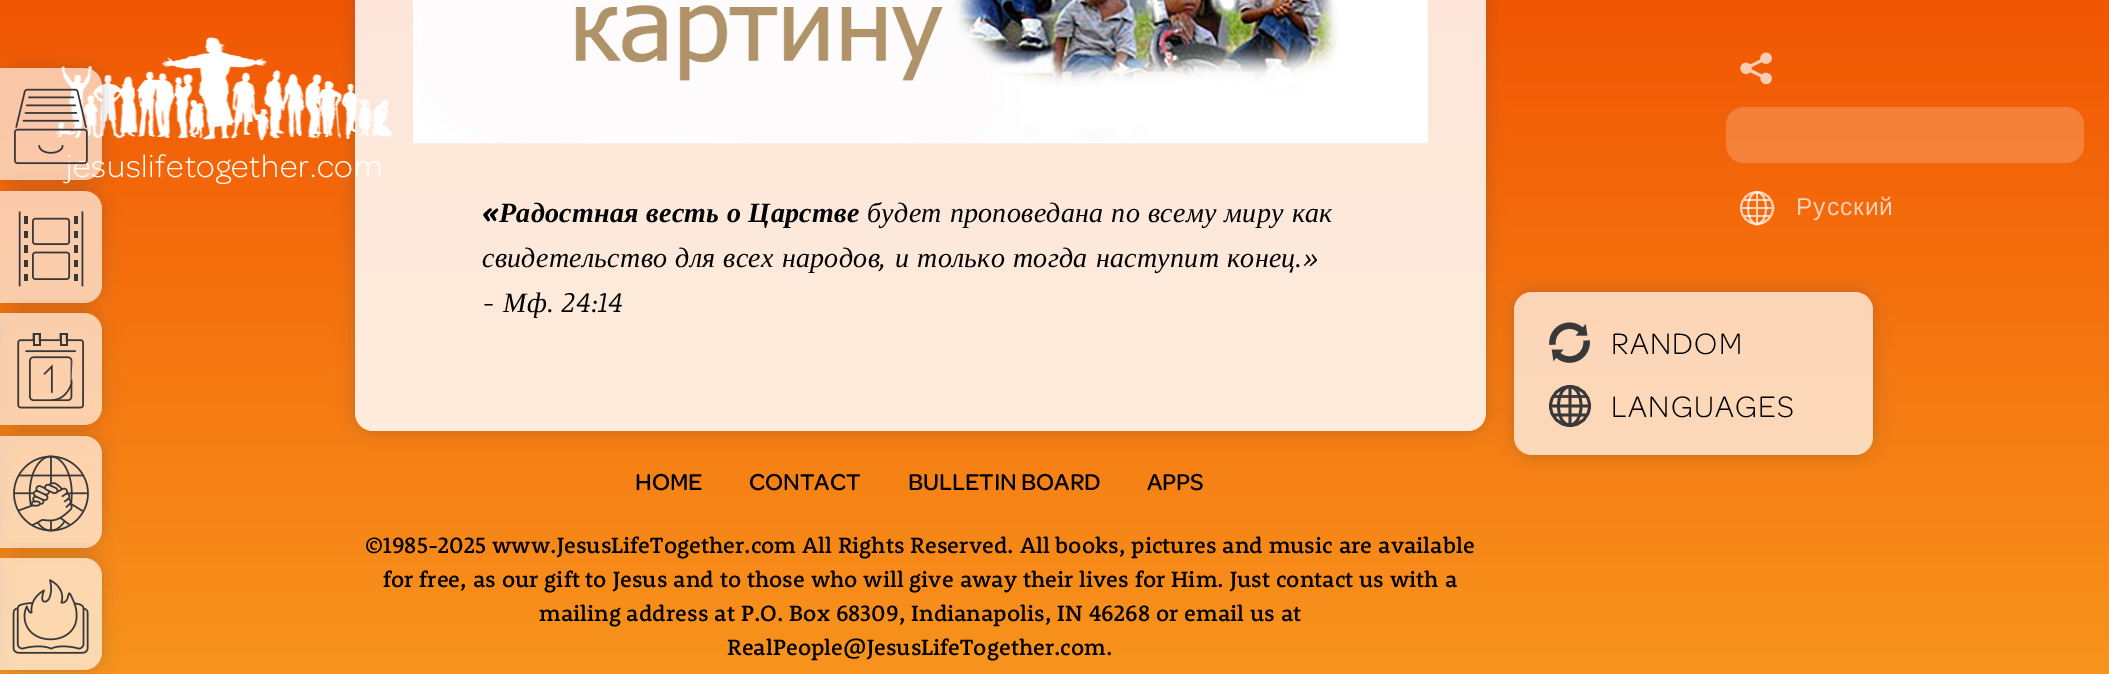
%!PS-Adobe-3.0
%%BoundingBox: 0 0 2109 674
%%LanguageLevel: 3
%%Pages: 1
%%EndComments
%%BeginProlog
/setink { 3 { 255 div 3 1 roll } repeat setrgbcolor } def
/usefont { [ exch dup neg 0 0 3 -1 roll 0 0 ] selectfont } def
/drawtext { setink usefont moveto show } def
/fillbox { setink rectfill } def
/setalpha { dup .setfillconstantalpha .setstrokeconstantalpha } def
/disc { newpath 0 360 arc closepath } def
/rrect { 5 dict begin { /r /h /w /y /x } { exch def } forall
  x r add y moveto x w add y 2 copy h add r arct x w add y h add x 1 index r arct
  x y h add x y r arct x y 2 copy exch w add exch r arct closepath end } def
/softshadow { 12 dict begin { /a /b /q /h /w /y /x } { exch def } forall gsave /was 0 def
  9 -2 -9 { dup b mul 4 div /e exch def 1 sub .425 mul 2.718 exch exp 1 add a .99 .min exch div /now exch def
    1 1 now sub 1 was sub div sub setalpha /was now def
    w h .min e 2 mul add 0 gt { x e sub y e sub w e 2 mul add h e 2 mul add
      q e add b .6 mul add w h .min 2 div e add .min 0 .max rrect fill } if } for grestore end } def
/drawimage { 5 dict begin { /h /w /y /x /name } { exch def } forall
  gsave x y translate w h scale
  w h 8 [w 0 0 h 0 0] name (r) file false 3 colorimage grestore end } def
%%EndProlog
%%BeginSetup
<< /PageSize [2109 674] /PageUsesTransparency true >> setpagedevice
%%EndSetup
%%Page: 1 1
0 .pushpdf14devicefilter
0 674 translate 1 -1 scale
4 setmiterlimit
0 0 2109 674 255 255 255 fillbox
gsave 0 0 moveto 2109 0 lineto 2109 674 lineto 0 674 lineto closepath clip newpath
<< /ShadingType 2 /ColorSpace /DeviceRGB /Coords [1055 0 1055 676] /Extend [true true] /Function << /FunctionType 2 /Domain [0 1] /C0 [0.945 0.337 0.012] /C1 [0.973 0.58 0.114] /N 1 >> >> shfill grestore
gsave
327 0 moveto 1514 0 lineto 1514 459 lineto 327 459 lineto closepath 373 -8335 moveto 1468 -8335 lineto 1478 -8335 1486 -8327 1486 -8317 curveto 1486 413 lineto 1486 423 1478 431 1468 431 curveto 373 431 lineto 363 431 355 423 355 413 curveto 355 -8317 lineto 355 -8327 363 -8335 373 -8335 curveto closepath eoclip newpath
57 57 57 setink
355 -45 1131 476 18 9 0.25 softshadow
grestore
0.85 setalpha
355 -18 1131 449 18 rrect fill
1 setalpha
(assets/img7.rgb) 55 37 337 103 drawimage
gsave
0 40 moveto 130 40 lineto 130 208 lineto 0 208 lineto closepath 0 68 moveto 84 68 lineto 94 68 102 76 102 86 curveto 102 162 lineto 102 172 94 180 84 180 curveto 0 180 lineto closepath eoclip newpath
57 57 57 setink
0 68 102 112 18 9 0.25 softshadow
grestore
/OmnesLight-Light 33.25 usefont
66 177 moveto 0.7 0 (jesuslifetogether.com) ashow
0.65 setalpha
0 68 moveto 84 68 lineto 94 68 102 76 102 86 curveto 102 162 lineto 102 172 94 180 84 180 curveto 0 180 lineto closepath fill
1 setalpha
(assets/img1.rgb) 14 88 74 77 drawimage
gsave
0 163 moveto 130 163 lineto 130 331 lineto 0 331 lineto closepath 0 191 moveto 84 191 lineto 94 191 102 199 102 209 curveto 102 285 lineto 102 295 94 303 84 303 curveto 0 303 lineto closepath eoclip newpath
57 57 57 setink
0 191 102 112 18 9 0.25 softshadow
grestore
57 57 57 setink
-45 313 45 112 18 9 0.25 softshadow
0.65 setalpha
255 255 255 setink
0 191 moveto 84 191 lineto 94 191 102 199 102 209 curveto 102 285 lineto 102 295 94 303 84 303 curveto 0 303 lineto closepath fill
1 setalpha
(assets/img2.rgb) 18 211 66 76 drawimage
gsave
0 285 moveto 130 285 lineto 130 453 lineto 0 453 lineto closepath 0 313 moveto 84 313 lineto 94 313 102 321 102 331 curveto 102 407 lineto 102 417 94 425 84 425 curveto 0 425 lineto closepath eoclip newpath
57 57 57 setink
0 313 102 112 18 9 0.25 softshadow
grestore
57 57 57 setink
-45 436 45 112 18 9 0.25 softshadow
0.65 setalpha
255 255 255 setink
0 313 moveto 84 313 lineto 94 313 102 321 102 331 curveto 102 407 lineto 102 417 94 425 84 425 curveto 0 425 lineto closepath fill
1 setalpha
(assets/img3.rgb) 17 333 67 76 drawimage
gsave
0 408 moveto 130 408 lineto 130 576 lineto 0 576 lineto closepath 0 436 moveto 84 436 lineto 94 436 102 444 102 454 curveto 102 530 lineto 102 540 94 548 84 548 curveto 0 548 lineto closepath eoclip newpath
57 57 57 setink
0 436 102 112 18 9 0.25 softshadow
grestore
57 57 57 setink
-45 558 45 112 18 9 0.25 softshadow
0.65 setalpha
255 255 255 setink
0 436 moveto 84 436 lineto 94 436 102 444 102 454 curveto 102 530 lineto 102 540 94 548 84 548 curveto 0 548 lineto closepath fill
1 setalpha
(assets/img4.rgb) 13 455 76 77 drawimage
gsave
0 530 moveto 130 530 lineto 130 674 lineto 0 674 lineto closepath 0 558 moveto 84 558 lineto 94 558 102 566 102 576 curveto 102 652 lineto 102 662 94 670 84 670 curveto 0 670 lineto closepath eoclip newpath
57 57 57 setink
0 558 102 112 18 9 0.25 softshadow
grestore
0.65 setalpha
0 558 moveto 84 558 lineto 94 558 102 566 102 576 curveto 102 652 lineto 102 662 94 670 84 670 curveto 0 670 lineto closepath fill
1 setalpha
(assets/img5.rgb) 12 579 77 75 drawimage
(assets/img6.rgb) 1740 52 32 33 drawimage
0.2 setalpha
1726 107 358 56 18 rrect fill
1 setalpha
(assets/img8.rgb) 413 0 1015 144 drawimage
/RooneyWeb-BoldItalic 28 usefont
0 0 0 setink
482 222 moveto 0.3 0 («) ashow
/LiberationSerif-BoldItalic 28 usefont
499 222 moveto 0.3 0 (Радостная весть о Царстве) ashow
/LiberationSerif-Italic 28 usefont
867 222 moveto 0.5 0 32 0.3 0 (будет проповедана по всему миру как) awidthshow
482 267 moveto 0.5 0 32 0.3 0 (свидетельство для всех народов) awidthshow
/RooneyWeb-LightItalic 28 usefont
879 267 moveto 0.3 0 (,) ashow
/LiberationSerif-Italic 28 usefont
895 267 moveto 0.5 0 32 0.3 0 (и только тогда наступит конец) awidthshow
/RooneyWeb-LightItalic 28 usefont
1295 267 moveto 0.3 0 (.») ashow
482 312 moveto 0.3 0 (-) ashow
/LiberationSerif-Italic 28 usefont
503 312 moveto 0.3 0 (Мф) ashow
/RooneyWeb-LightItalic 28 usefont
547 312 moveto 0.3 0 (. 24:14) ashow
gsave
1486 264 moveto 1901 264 lineto 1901 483 lineto 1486 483 lineto closepath 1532 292 moveto 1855 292 lineto 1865 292 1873 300 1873 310 curveto 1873 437 lineto 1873 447 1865 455 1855 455 curveto 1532 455 lineto 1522 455 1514 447 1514 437 curveto 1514 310 lineto 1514 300 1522 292 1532 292 curveto closepath eoclip newpath
57 57 57 setink
1514 292 359 163 18 9 0.25 softshadow
grestore
0.7 setalpha
255 255 255 setink
1514 292 359 163 18 rrect fill
1 setalpha
(assets/img9.rgb) 1549 322 41 41 drawimage
/OmnesLight-Light 31.5 usefont
0 0 0 setink
1611 354 moveto 1.25 0 (RANDOM) ashow
1611 417 moveto 1.25 0 (LANGUAGES) ashow
57 56 57 setink
2.8 setlinewidth
1570 406 19.5 disc stroke
0.93 setalpha
1553 395 34 3 57 56 57 fillbox
1 setalpha
1552.5 415 moveto 1586.5 415 lineto 1550.5 406 moveto 1588.5 406 lineto 1570 387 moveto 1570 425 lineto 1581 406 moveto 1581 431.5 1558.5 431.5 1558.5 406 curveto 1558.5 380 1581 380 1581 406 curveto stroke
(HOME) 635 490 /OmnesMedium-Medium 24.5 0 0 0 drawtext
(CONTACT) 749 490 /OmnesMedium-Medium 24.5 0 0 0 drawtext
(BULLETIN BOARD) 908 490 /OmnesMedium-Medium 24.5 0 0 0 drawtext
(APPS) 1147 490 /OmnesMedium-Medium 24.5 0 0 0 drawtext
(©1985-2025 www.JesusLifeTogether.com All Rights Reserved. All books, pictures and music are available) 365 553 /RooneyWeb-Medium 22.75 0 0 0 drawtext
(for free, as our gift to Jesus and to those who will give away their lives for Him. Just contact us with a) 383 587 /RooneyWeb-Medium 22.75 0 0 0 drawtext
(mailing address at P.O. Box 68309, Indianapolis, IN 46268 or email us at) 539 621 /RooneyWeb-Medium 22.75 0 0 0 drawtext
(RealPeople@JesusLifeTogether.com.) 727 655 /RooneyWeb-Medium 22.75 0 0 0 drawtext
0.7 setalpha
255 255 255 setink
2 setlinewidth
1757 208 16 disc stroke
1 setalpha
1743 199 28 2 251 210 182 fillbox
1743 215 28 2 251 210 182 fillbox
1741 207 32 2 251 210 182 fillbox
1756 192 2 32 251 210 182 fillbox
0.7 setalpha
255 255 255 setink
1766 208 moveto 1766 229.5 1748 229.5 1748 208 curveto 1748 187 1766 187 1766 208 curveto stroke
/LiberationSans-Regular 24.5 usefont
1 setalpha
251 210 182 setink
1796 215 moveto 1 0 (Русский) ashow
.poppdf14devicefilter showpage
%%EOF
